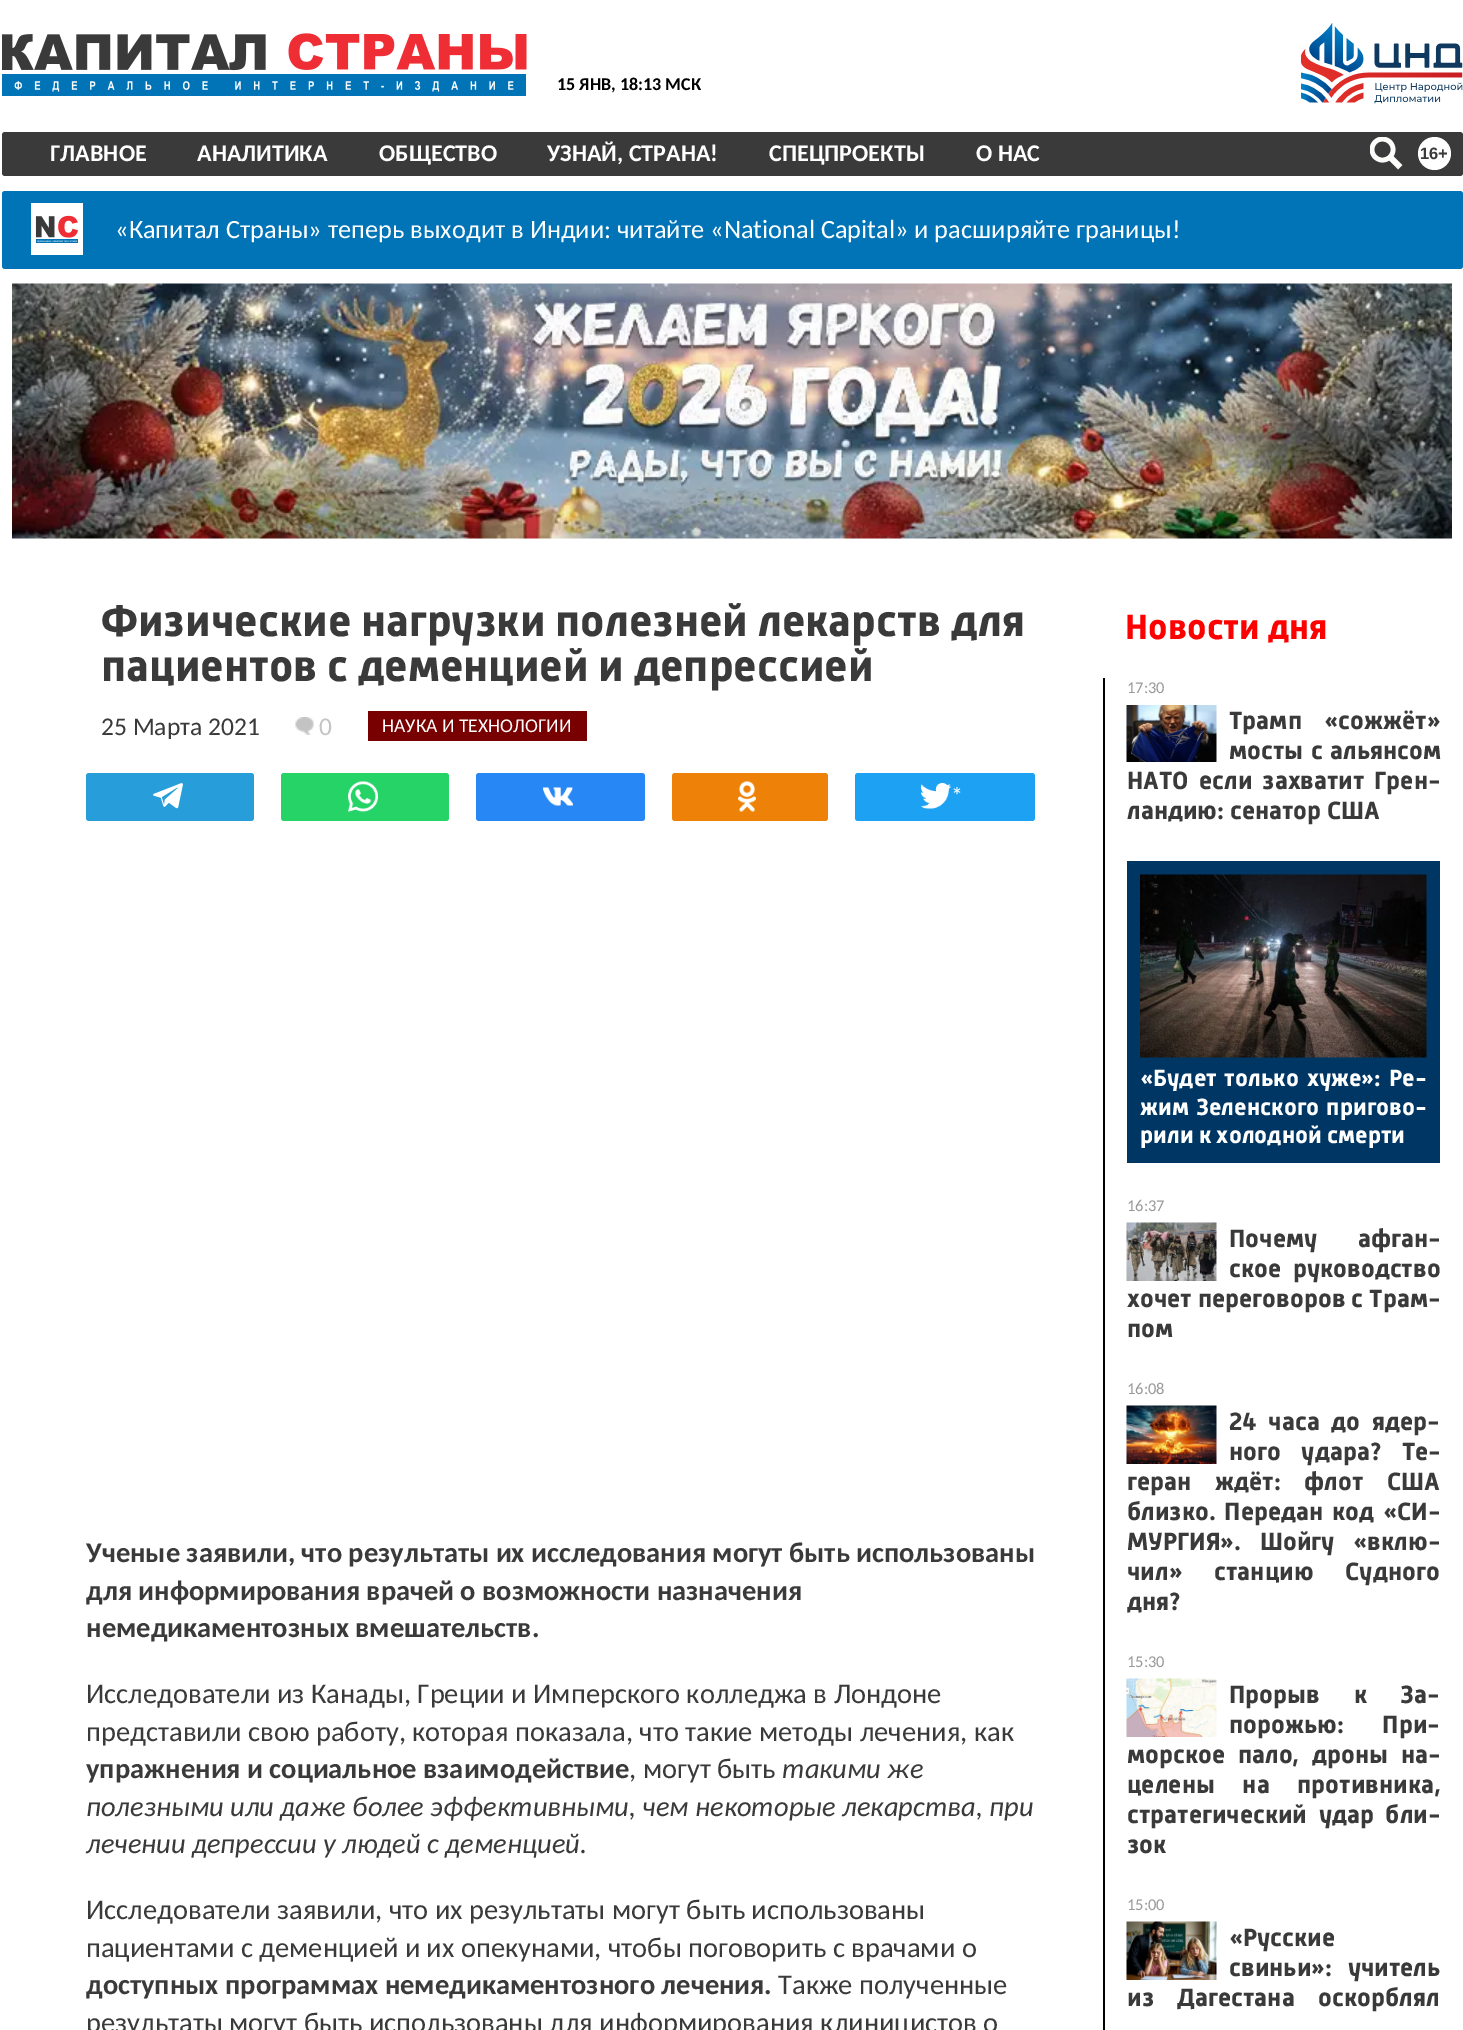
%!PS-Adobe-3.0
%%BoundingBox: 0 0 1463 2030
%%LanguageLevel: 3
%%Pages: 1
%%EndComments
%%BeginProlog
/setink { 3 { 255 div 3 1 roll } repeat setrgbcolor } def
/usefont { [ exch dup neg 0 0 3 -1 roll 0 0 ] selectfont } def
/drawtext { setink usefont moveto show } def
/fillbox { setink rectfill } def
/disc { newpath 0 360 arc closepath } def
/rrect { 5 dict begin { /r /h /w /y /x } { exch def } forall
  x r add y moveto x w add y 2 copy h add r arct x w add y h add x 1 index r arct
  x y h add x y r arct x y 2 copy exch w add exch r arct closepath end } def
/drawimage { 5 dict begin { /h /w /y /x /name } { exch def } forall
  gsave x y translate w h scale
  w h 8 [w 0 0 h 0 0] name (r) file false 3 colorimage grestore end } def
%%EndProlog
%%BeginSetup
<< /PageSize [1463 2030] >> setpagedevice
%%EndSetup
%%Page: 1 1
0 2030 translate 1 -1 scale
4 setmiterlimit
0 0 1463 2030 255 255 255 fillbox
(assets/img1.rgb) 2 33 525 63 drawimage
(15 ЯНВ, 18:13 МСК) 557 90 /Carlito-Bold 18 0 0 0 drawtext
(assets/img2.rgb) 1301 23 162 81 drawimage
58 58 59 setink
2 132 1461 44 3 rrect fill
(ГЛАВНОЕ) 50 161 /Carlito-Bold 24 255 255 255 drawtext
(АНАЛИТИКА) 197 161 /Carlito-Bold 24 255 255 255 drawtext
(ОБЩЕСТВО) 379 161 /Carlito-Bold 24 255 255 255 drawtext
(УЗНАЙ, СТРАНА!) 547 161 /Carlito-Bold 24 255 255 255 drawtext
(СПЕЦПРОЕКТЫ) 769 161 /Carlito-Bold 24 255 255 255 drawtext
(О НАС) 976 161 /Carlito-Bold 24 255 255 255 drawtext
(assets/img3.rgb) 1370 137 33 33 drawimage
1434.5 153.5 16.5 disc fill
(16+) 1420 159 /LiberationSans-Bold 16.5 58 58 59 drawtext
0 116 183 setink
2 191 1461 78 3 rrect fill
(assets/img4.rgb) 31 203 52 52 drawimage
(«Капитал Страны» теперь выходит в Индии: читайте «National Capital» и расширяйте границы!) 115 238 /Carlito-Regular 26.4 255 255 255 drawtext
(assets/img5.rgb) 12 283 1440 256 drawimage
(Физические нагрузки полезней лекарств для) 101 636 /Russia-Bold 45 58 58 59 drawtext
(пациентов с деменцией и депрессией) 101 681 /Russia-Bold 45 58 58 59 drawtext
(25 Марта 2021) 101 735 /Carlito-Regular 25.5 58 58 59 drawtext
(assets/img6.rgb) 295 717 19 18 drawimage
(0) 319 735 /Carlito-Regular 25.5 196 196 196 drawtext
368 711 219 30 121 0 0 fillbox
(НАУКА И ТЕХНОЛОГИИ) 382 732 /Carlito-Regular 19.5 255 255 255 drawtext
39 158 218 setink
86 773 168 48 3 rrect fill
(assets/img7.rgb) 153 783 30 26 drawimage
37 211 102 setink
281 773 168 48 3 rrect fill
(assets/img8.rgb) 348 781 30 31 drawimage
39 135 245 setink
476 773 169 48 3 rrect fill
(assets/img9.rgb) 543 787 30 19 drawimage
238 130 8 setink
672 773 156 48 3 rrect fill
(assets/img10.rgb) 738 781 18 31 drawimage
29 161 242 setink
855 773 180 48 3 rrect fill
(assets/img11.rgb) 921 783 30 26 drawimage
(*) 951 804 /Carlito-Regular 24 255 255 255 drawtext
(Ученые заявили, что результаты их исследования могут быть использованы) 86 1562 /Carlito-Bold 28.5 58 58 59 drawtext
gsave
86 600 949 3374 rectclip
(для информирования врачей о возможности назначения) 86 1600 /Carlito-Bold 28.5 58 58 59 drawtext
grestore
(немедикаментозных вмешательств.) 86 1637 /Carlito-Bold 28.5 58 58 59 drawtext
(Исследователи из Канады, Греции и Имперского колледжа в Лондоне) 86 1703 /Carlito-Regular 28.5 58 58 59 drawtext
(представили свою работу, которая показала, что такие методы лечения, как) 86 1741 /Carlito-Regular 28.5 58 58 59 drawtext
(упражнения и социальное взаимодействие) 86 1778 /Carlito-Bold 28.5 58 58 59 drawtext
(, могут быть) 629 1778 /Carlito-Regular 28.5 58 58 59 drawtext
(такими же) 782 1778 /Carlito-Italic 28.5 58 58 59 drawtext
(полезными или даже более эффективными, чем некоторые лекарства, при) 86 1816 /Carlito-Italic 28.5 58 58 59 drawtext
(лечении депрессии у людей с деменцией.) 86 1853 /Carlito-Italic 28.5 58 58 59 drawtext
(Исследователи заявили, что их результаты могут быть использованы) 86 1919 /Carlito-Regular 28.5 58 58 59 drawtext
(пациентами с деменцией и их опекунами, чтобы поговорить с врачами о) 86 1957 /Carlito-Regular 28.5 58 58 59 drawtext
gsave
86 600 949 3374 rectclip
(доступных программах немедикаментозного лечения.) 86 1994 /Carlito-Bold 28.5 58 58 59 drawtext
grestore
(Также полученные) 778 1994 /Carlito-Regular 28.5 58 58 59 drawtext
(результаты могут быть использованы для информирования клиницистов о) 86 2032 /Carlito-Regular 28.5 58 58 59 drawtext
(Новости дня) 1125 639 /Russia-Bold 36 255 0 0 drawtext
1103 678 2 1352 0 0 0 fillbox
(17:30) 1127 693 /Carlito-Regular 16.5 153 153 153 drawtext
(assets/img12.rgb) 1126 705 91 57 drawimage
/Russia-Bold 25.5 usefont
58 58 59 setink
1229 729 moveto 17 0 32 (Трамп «сожжёт») widthshow
1229 759 moveto 2 0 32 (мосты с альянсом) widthshow
1127 789 moveto 4.5 0 32 (НАТО если захватит Грен-) widthshow
(ландию: сенатор США) 1127 819 /Russia-Bold 25.5 58 58 59 drawtext
1127 861 313 302 0 54 99 fillbox
(assets/img13.rgb) 1140 874 287 184 drawimage
/Russia-Bold 24 usefont
255 255 255 setink
1140 1086 moveto 2.5 0 32 («Будет только хуже»: Ре-) widthshow
1140 1115 moveto 2 0 32 (жим Зеленского пригово-) widthshow
(рили к холодной смерти) 1140 1143 /Russia-Bold 24 255 255 255 drawtext
(16:37) 1127 1211 /Carlito-Regular 16.5 153 153 153 drawtext
(assets/img14.rgb) 1126 1222 91 59 drawimage
/Russia-Bold 25.5 usefont
58 58 59 setink
1229 1247 moveto 35 0 32 (Почему афган-) widthshow
1229 1277 moveto 6 0 32 (ское руководство) widthshow
1127 1307 moveto 0.5 0 32 (хочет переговоров с Трам-) widthshow
(пом) 1127 1337 /Russia-Bold 25.5 58 58 59 drawtext
(16:08) 1127 1394 /Carlito-Regular 16.5 153 153 153 drawtext
(assets/img15.rgb) 1126 1405 91 59 drawimage
/Russia-Bold 25.5 usefont
58 58 59 setink
1229 1430 moveto 6 0 32 (24 часа до ядер-) widthshow
1229 1460 moveto 15 0 32 (ного удара? Те-) widthshow
1127 1490 moveto 18 0 32 (геран ждёт: флот США) widthshow
1127 1520 moveto 3 0 32 (близко. Передан код «СИ-) widthshow
1127 1550 moveto 13 0 32 (МУРГИЯ». Шойгу «вклю-) widthshow
1127 1580 moveto 26 0 32 (чил» станцию Судного) widthshow
(дня?) 1127 1610 /Russia-Bold 25.5 58 58 59 drawtext
(15:30) 1127 1667 /Carlito-Regular 16.5 153 153 153 drawtext
(assets/img16.rgb) 1126 1678 91 59 drawimage
/Russia-Bold 25.5 usefont
58 58 59 setink
1229 1703 moveto 28 0 32 (Прорыв к За-) widthshow
1229 1733 moveto 33 0 32 (порожью: При-) widthshow
1127 1763 moveto 7 0 32 (морское пало, дроны на-) widthshow
1127 1793 moveto 22 0 32 (целены на противника,) widthshow
1127 1823 moveto 6 0 32 (стратегический удар бли-) widthshow
(зок) 1127 1853 /Russia-Bold 25.5 58 58 59 drawtext
(15:00) 1127 1910 /Carlito-Regular 16.5 153 153 153 drawtext
(assets/img17.rgb) 1126 1921 91 59 drawimage
(«Русские) 1229 1946 /Russia-Bold 25.5 58 58 59 drawtext
1229 1976 moveto 10 0 32 (свиньи»: учитель) widthshow
1127 2006 moveto 18 0 32 (из Дагестана оскорблял) widthshow
showpage
%%EOF
